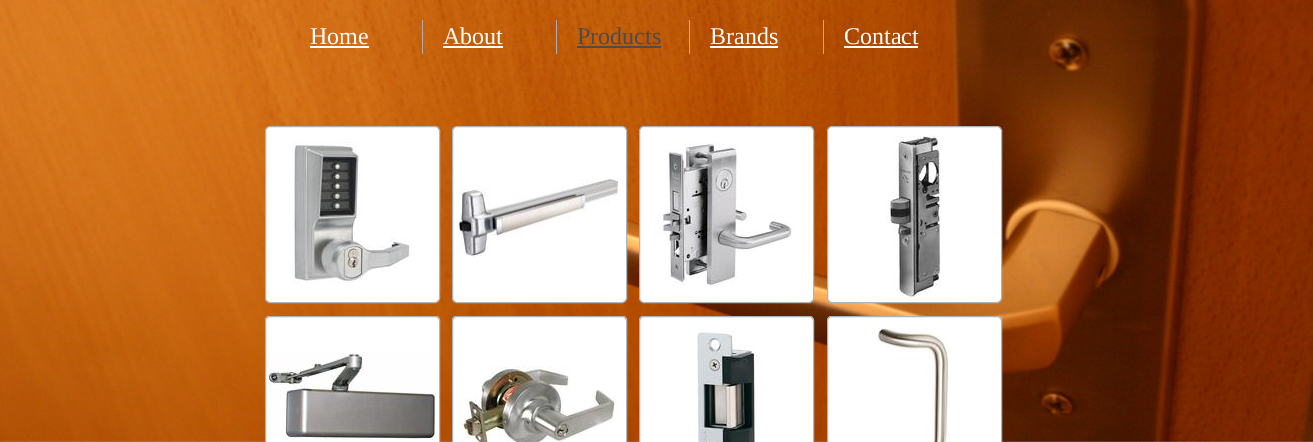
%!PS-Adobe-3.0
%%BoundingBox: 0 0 1313 442
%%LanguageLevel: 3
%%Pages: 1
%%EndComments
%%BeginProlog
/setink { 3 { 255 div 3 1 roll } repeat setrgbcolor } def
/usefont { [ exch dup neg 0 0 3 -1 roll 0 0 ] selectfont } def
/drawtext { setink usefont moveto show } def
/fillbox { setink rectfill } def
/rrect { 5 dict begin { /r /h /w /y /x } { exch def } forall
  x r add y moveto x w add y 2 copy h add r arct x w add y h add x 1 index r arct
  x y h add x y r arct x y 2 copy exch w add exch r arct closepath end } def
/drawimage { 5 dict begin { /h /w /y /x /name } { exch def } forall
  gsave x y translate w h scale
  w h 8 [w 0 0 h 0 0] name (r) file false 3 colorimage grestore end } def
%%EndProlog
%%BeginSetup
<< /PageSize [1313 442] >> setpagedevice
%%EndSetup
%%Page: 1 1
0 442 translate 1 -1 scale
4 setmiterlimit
0 0 1313 442 255 255 255 fillbox
(assets/img1.rgb) 0 0 1313 442 drawimage
204 0 1 1 163 129 84 fillbox
422 20 1 34 174 174 174 fillbox
(Home) 310 44 /LiberationSerif-Regular 24 255 255 255 drawtext
310 46 59 2 255 255 255 fillbox
556 20 1 34 174 174 174 fillbox
(About) 443 44 /LiberationSerif-Regular 24 255 255 255 drawtext
443 46 60 2 255 255 255 fillbox
689 20 1 34 174 174 174 fillbox
(Products) 577 44 /LiberationSerif-Regular 24 76 76 76 drawtext
577 46 84 2 76 76 76 fillbox
823 20 1 34 174 174 174 fillbox
(Brands) 710 44 /LiberationSerif-Regular 24 255 255 255 drawtext
710 46 68 2 255 255 255 fillbox
(Contact) 844 44 /LiberationSerif-Regular 24 255 255 255 drawtext
844 46 74 2 255 255 255 fillbox
265.5 126.5 174 176 4.5 rrect gsave fill grestore
169 180 187 setink
stroke
255 255 255 setink
452.5 126.5 174 176 4.5 rrect gsave fill grestore
169 180 187 setink
stroke
255 255 255 setink
639.5 126.5 174 176 4.5 rrect gsave fill grestore
169 180 187 setink
stroke
255 255 255 setink
827.5 126.5 174 176 4.5 rrect gsave fill grestore
169 180 187 setink
stroke
(assets/img2.rgb) 292 141 118 144 drawimage
(assets/img3.rgb) 458 179 160 78 drawimage
(assets/img4.rgb) 657 142 136 144 drawimage
(assets/img5.rgb) 885 135 56 165 drawimage
255 255 255 setink
270 316 moveto 435 316 lineto 438 316 440 318 440 321 curveto 440 442 lineto 265 442 lineto 265 321 lineto 265 318 267 316 270 316 curveto closepath fill
169 180 187 setink
265.5 316.5 174 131 4.5 rrect stroke
255 255 255 setink
457 316 moveto 622 316 lineto 625 316 627 318 627 321 curveto 627 442 lineto 452 442 lineto 452 321 lineto 452 318 454 316 457 316 curveto closepath fill
169 180 187 setink
452.5 316.5 174 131 4.5 rrect stroke
255 255 255 setink
644 316 moveto 809 316 lineto 812 316 814 318 814 321 curveto 814 442 lineto 639 442 lineto 639 321 lineto 639 318 641 316 644 316 curveto closepath fill
169 180 187 setink
639.5 316.5 174 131 4.5 rrect stroke
255 255 255 setink
832 316 moveto 997 316 lineto 1000 316 1002 318 1002 321 curveto 1002 442 lineto 827 442 lineto 827 321 lineto 827 318 829 316 832 316 curveto closepath fill
169 180 187 setink
827.5 316.5 174 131 4.5 rrect stroke
(assets/img6.rgb) 268 353 168 88 drawimage
(assets/img7.rgb) 458 366 160 76 drawimage
(assets/img8.rgb) 697 329 64 113 drawimage
(assets/img9.rgb) 878 328 71 114 drawimage
showpage
%%EOF
